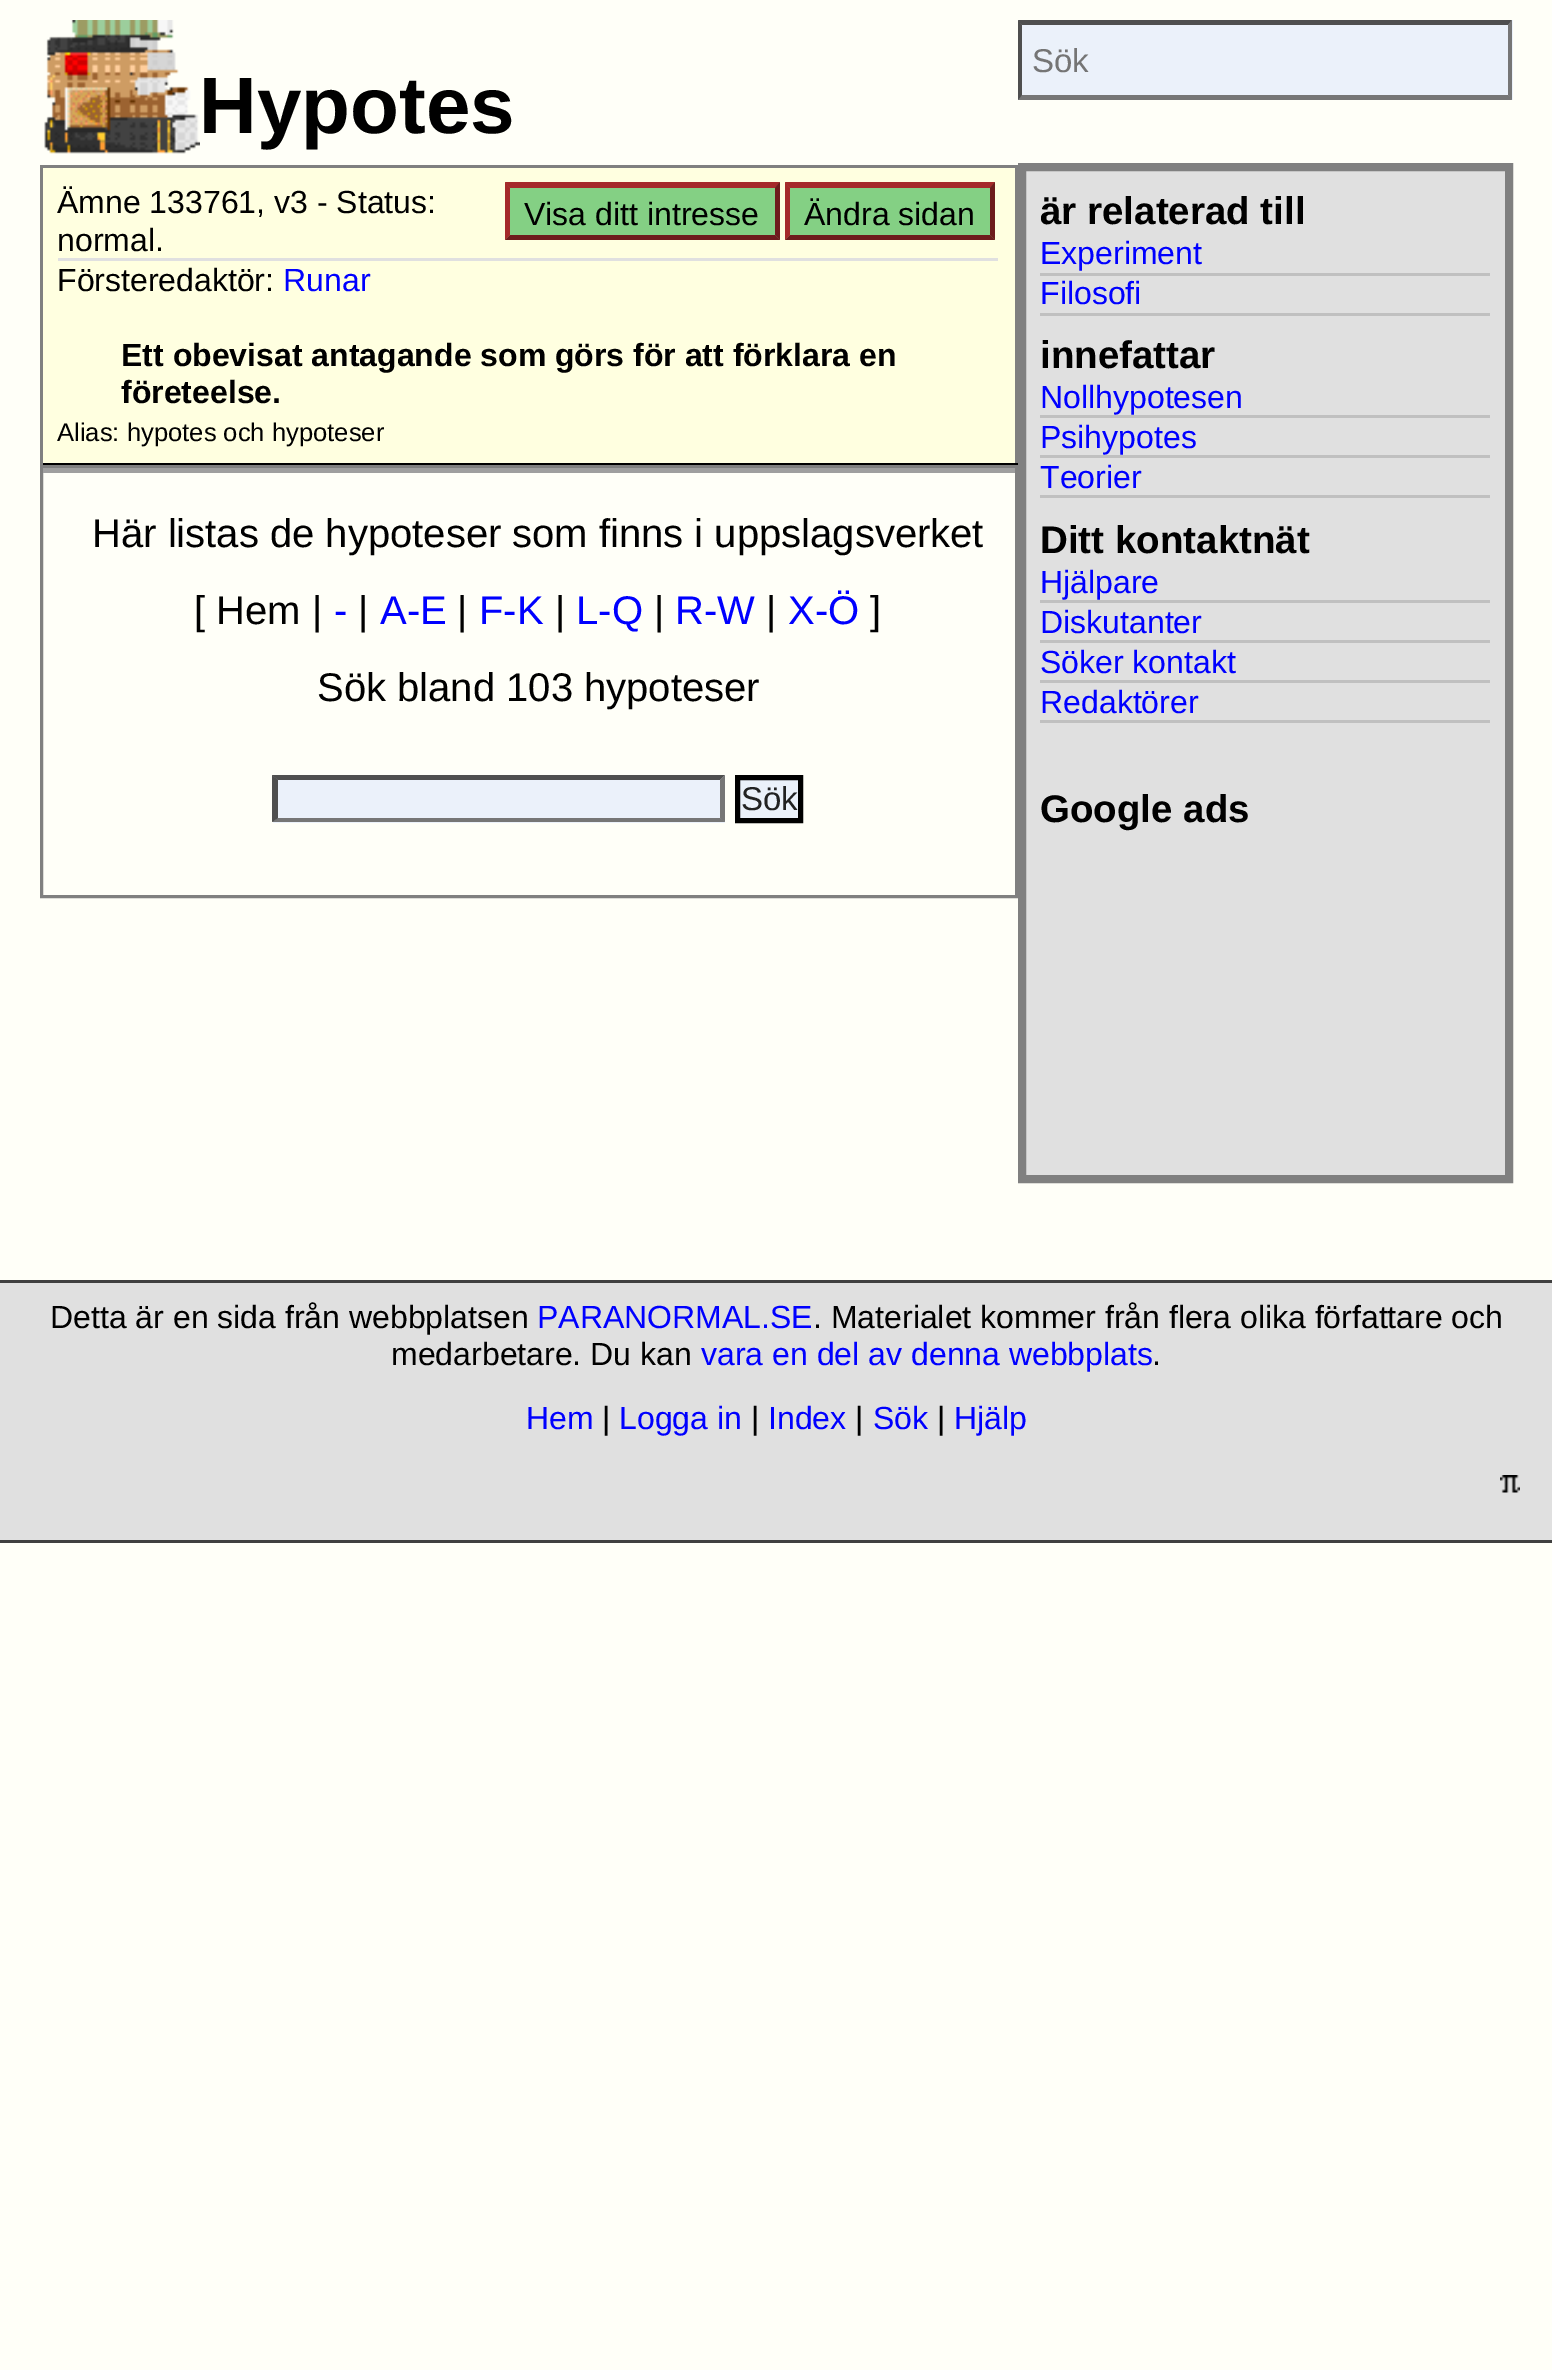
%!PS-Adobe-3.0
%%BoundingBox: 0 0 1552 2370
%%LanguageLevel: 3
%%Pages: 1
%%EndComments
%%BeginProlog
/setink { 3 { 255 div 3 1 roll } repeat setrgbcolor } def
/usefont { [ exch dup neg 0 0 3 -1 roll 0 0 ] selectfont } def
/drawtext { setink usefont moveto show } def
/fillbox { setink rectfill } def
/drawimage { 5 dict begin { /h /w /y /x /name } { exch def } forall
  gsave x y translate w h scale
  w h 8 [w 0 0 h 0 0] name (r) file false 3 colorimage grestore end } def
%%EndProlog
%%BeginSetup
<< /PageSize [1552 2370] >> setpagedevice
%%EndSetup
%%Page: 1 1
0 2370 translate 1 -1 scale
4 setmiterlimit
0 0 1552 2370 255 255 248 fillbox
(assets/img1.rgb) 44 20 156 134 drawimage
(Hypotes) 199 133 /LiberationSans-Bold 80 0 0 0 drawtext
43 168 972 295 255 255 224 fillbox
40 165 978 3 128 128 128 fillbox
1015 165 3 300 128 128 128 fillbox
40 463 978 2 0 0 0 fillbox
40 165 3 300 128 128 128 fillbox
58 258 940 3 224 224 224 fillbox
(Ämne 133761, v3 - Status:) 57 213 /LiberationSans-Regular 32 0 0 0 drawtext
(normal.) 57 251 /LiberationSans-Regular 32 0 0 0 drawtext
505 183 275 57 132 208 132 fillbox
165 42 42 setink
505 182 moveto 780 182 lineto 775 188 lineto 510 188 lineto closepath fill
110 28 28 setink
780 182 moveto 780 240 lineto 775 235 lineto 775 188 lineto closepath fill
780 240 moveto 505 240 lineto 510 235 lineto 775 235 lineto closepath fill
165 42 42 setink
505 240 moveto 505 182 lineto 510 188 lineto 510 235 lineto closepath fill
(Visa ditt intresse) 524 225 /LiberationSans-Regular 32 0 0 0 drawtext
785 183 210 57 132 208 132 fillbox
165 42 42 setink
785 182 moveto 995 182 lineto 990 188 lineto 790 188 lineto closepath fill
110 28 28 setink
995 182 moveto 995 240 lineto 990 235 lineto 990 188 lineto closepath fill
995 240 moveto 785 240 lineto 790 235 lineto 990 235 lineto closepath fill
165 42 42 setink
785 240 moveto 785 182 lineto 790 188 lineto 790 235 lineto closepath fill
(Ändra sidan) 804 225 /LiberationSans-Regular 32 0 0 0 drawtext
(Försteredaktör:) 57 291 /LiberationSans-Regular 32 0 0 0 drawtext
(Runar) 283 291 /LiberationSans-Regular 32 0 0 255 drawtext
(Ett obevisat antagande som görs för att förklara en) 121 366 /LiberationSans-Bold 32 0 0 0 drawtext
(företeelse.) 121 403 /LiberationSans-Bold 32 0 0 0 drawtext
(Alias: hypotes och hypoteser) 57 441 /LiberationSans-Regular 25.6 0 0 0 drawtext
128 128 128 setink
3 setlinewidth
41.5 466.5 975 430 rectstroke
43 468 972 5 159 159 159 fillbox
(Här listas de hypoteser som finns i uppslagsverket) 92 547 /LiberationSans-Regular 40 0 0 0 drawtext
([ Hem |) 194 624 /LiberationSans-Regular 40 0 0 0 drawtext
(-) 334 624 /LiberationSans-Regular 40 0 0 255 drawtext
(|) 358 624 /LiberationSans-Regular 40 0 0 0 drawtext
(A-E) 380 624 /LiberationSans-Regular 40 0 0 255 drawtext
(|) 457 624 /LiberationSans-Regular 40 0 0 0 drawtext
(F-K) 479 624 /LiberationSans-Regular 40 0 0 255 drawtext
(|) 555 624 /LiberationSans-Regular 40 0 0 0 drawtext
(L-Q) 576 624 /LiberationSans-Regular 40 0 0 255 drawtext
(|) 654 624 /LiberationSans-Regular 40 0 0 0 drawtext
(R-W) 675 624 /LiberationSans-Regular 40 0 0 255 drawtext
(|) 766 624 /LiberationSans-Regular 40 0 0 0 drawtext
(X-Ö) 788 624 /LiberationSans-Regular 40 0 0 255 drawtext
(]) 870 624 /LiberationSans-Regular 40 0 0 0 drawtext
(Sök bland 103 hypoteser) 317 701 /LiberationSans-Regular 40 0 0 0 drawtext
273 775 452 48 235 241 250 fillbox
79 79 79 setink
272 775 moveto 725 775 lineto 720 780 lineto 278 780 lineto closepath fill
118 118 118 setink
725 775 moveto 725 822 lineto 720 818 lineto 720 780 lineto closepath fill
725 822 moveto 272 822 lineto 278 818 lineto 720 818 lineto closepath fill
79 79 79 setink
272 822 moveto 272 775 lineto 278 780 lineto 278 818 lineto closepath fill
235 241 250 setink
737.5 777.5 moveto 800.5 777.5 lineto 800.5 820.5 lineto 737.5 820.5 lineto closepath gsave fill grestore
0 0 0 setink
5 setlinewidth
stroke
(Sök) 741 810 /LiberationSans-Regular 33 34 34 34 drawtext
1018 20 495 80 235 241 250 fillbox
79 79 79 setink
1018 20 moveto 1512 20 lineto 1508 25 lineto 1022 25 lineto closepath fill
118 118 118 setink
1512 20 moveto 1512 100 lineto 1508 95 lineto 1508 25 lineto closepath fill
1512 100 moveto 1018 100 lineto 1022 95 lineto 1508 95 lineto closepath fill
79 79 79 setink
1018 100 moveto 1018 20 lineto 1022 25 lineto 1022 95 lineto closepath fill
(Sök) 1032 72 /LiberationSans-Regular 33 117 117 117 drawtext
224 224 224 setink
1022 167 moveto 1509 167 lineto 1509 1179 lineto 1022 1179 lineto closepath gsave fill grestore
128 128 128 setink
8 setlinewidth
stroke
(är relaterad till) 1040 224 /LiberationSans-Bold 38.5 0 0 0 drawtext
1040 273 450 3 192 192 192 fillbox
(Experiment) 1040 264 /LiberationSans-Regular 32 0 0 255 drawtext
1040 313 450 3 192 192 192 fillbox
(Filosofi) 1040 304 /LiberationSans-Regular 32 0 0 255 drawtext
(innefattar) 1040 368 /LiberationSans-Bold 38.5 0 0 0 drawtext
1040 415 450 3 192 192 192 fillbox
(Nollhypotesen) 1040 408 /LiberationSans-Regular 32 0 0 255 drawtext
1040 455 450 3 192 192 192 fillbox
(Psihypotes) 1040 448 /LiberationSans-Regular 32 0 0 255 drawtext
1040 495 450 3 192 192 192 fillbox
(Teorier) 1040 488 /LiberationSans-Regular 32 0 0 255 drawtext
(Ditt kontaktnät) 1040 553 /LiberationSans-Bold 38.5 0 0 0 drawtext
1040 600 450 3 192 192 192 fillbox
(Hjälpare) 1040 593 /LiberationSans-Regular 32 0 0 255 drawtext
1040 640 450 3 192 192 192 fillbox
(Diskutanter) 1040 633 /LiberationSans-Regular 32 0 0 255 drawtext
1040 680 450 3 192 192 192 fillbox
(Söker kontakt) 1040 673 /LiberationSans-Regular 32 0 0 255 drawtext
1040 720 450 3 192 192 192 fillbox
(Redaktörer) 1040 713 /LiberationSans-Regular 32 0 0 255 drawtext
(Google ads) 1040 822 /LiberationSans-Bold 38.5 0 0 0 drawtext
0 1283 1552 257 224 224 224 fillbox
0 1280 1552 3 64 64 64 fillbox
0 1540 1552 3 64 64 64 fillbox
(Detta är en sida från webbplatsen) 50 1328 /LiberationSans-Regular 32 0 0 0 drawtext
(PARANORMAL.SE) 537 1328 /LiberationSans-Regular 32 0 0 255 drawtext
(. Materialet kommer från flera olika författare och) 813 1328 /LiberationSans-Regular 32 0 0 0 drawtext
(medarbetare. Du kan) 391 1365 /LiberationSans-Regular 32 0 0 0 drawtext
(vara en del av denna webbplats) 701 1365 /LiberationSans-Regular 32 0 0 255 drawtext
(.) 1152 1365 /LiberationSans-Regular 32 0 0 0 drawtext
(Hem) 526 1429 /LiberationSans-Regular 32 0 0 255 drawtext
(|) 602 1429 /LiberationSans-Regular 32 0 0 0 drawtext
(Logga in) 619 1429 /LiberationSans-Regular 32 0 0 255 drawtext
(|) 751 1429 /LiberationSans-Regular 32 0 0 0 drawtext
(Index) 768 1429 /LiberationSans-Regular 32 0 0 255 drawtext
(|) 855 1429 /LiberationSans-Regular 32 0 0 0 drawtext
(Sök) 873 1429 /LiberationSans-Regular 32 0 0 255 drawtext
(|) 937 1429 /LiberationSans-Regular 32 0 0 0 drawtext
(Hjälp) 954 1429 /LiberationSans-Regular 32 0 0 255 drawtext
(assets/img2.rgb) 1500 1475 20 18 drawimage
showpage
%%EOF
